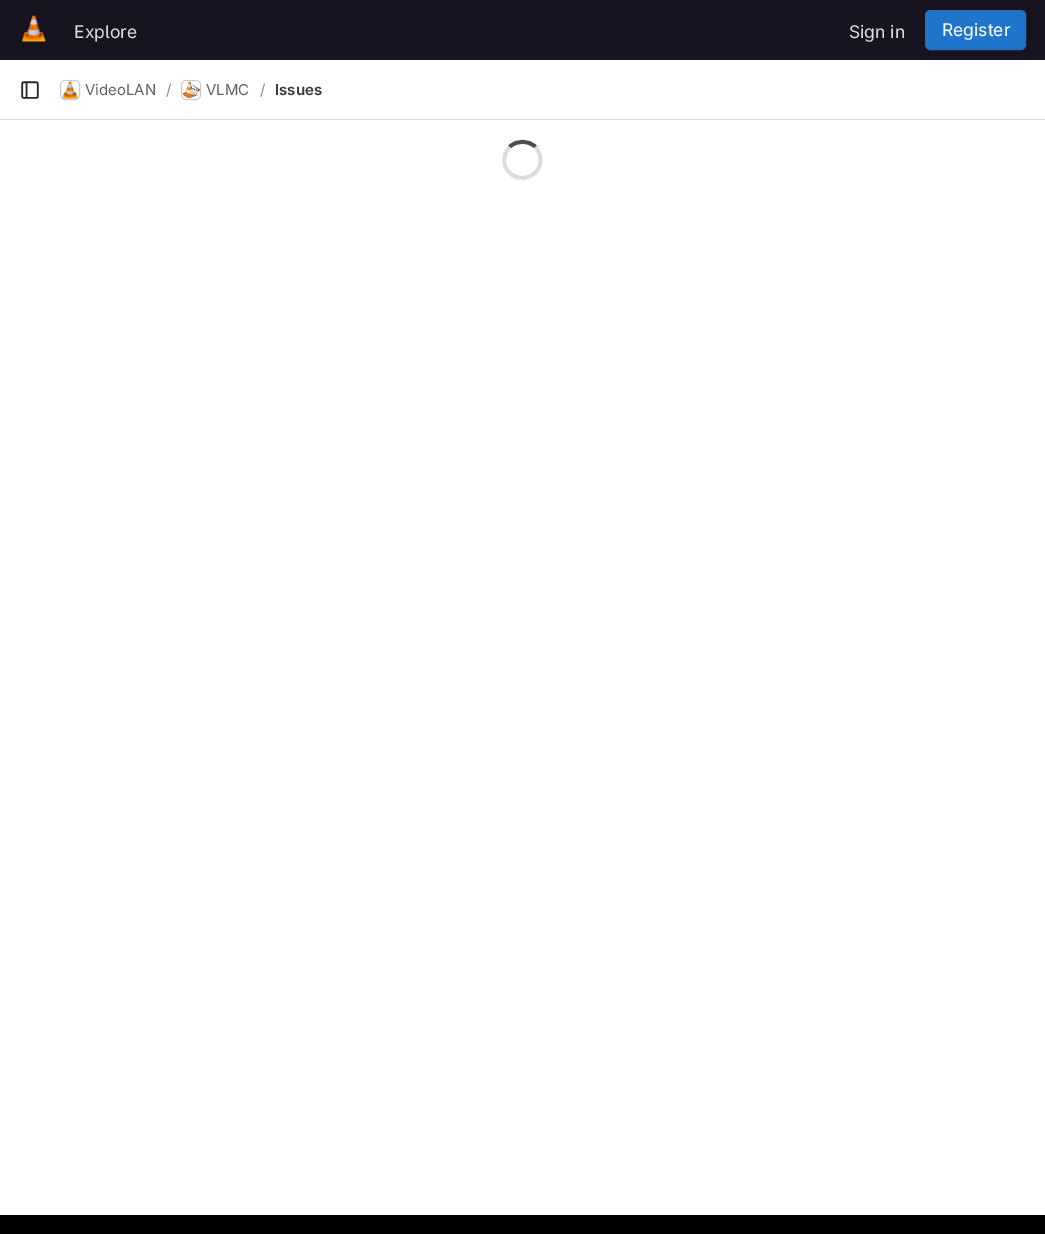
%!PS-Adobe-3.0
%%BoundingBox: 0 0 1045 1234
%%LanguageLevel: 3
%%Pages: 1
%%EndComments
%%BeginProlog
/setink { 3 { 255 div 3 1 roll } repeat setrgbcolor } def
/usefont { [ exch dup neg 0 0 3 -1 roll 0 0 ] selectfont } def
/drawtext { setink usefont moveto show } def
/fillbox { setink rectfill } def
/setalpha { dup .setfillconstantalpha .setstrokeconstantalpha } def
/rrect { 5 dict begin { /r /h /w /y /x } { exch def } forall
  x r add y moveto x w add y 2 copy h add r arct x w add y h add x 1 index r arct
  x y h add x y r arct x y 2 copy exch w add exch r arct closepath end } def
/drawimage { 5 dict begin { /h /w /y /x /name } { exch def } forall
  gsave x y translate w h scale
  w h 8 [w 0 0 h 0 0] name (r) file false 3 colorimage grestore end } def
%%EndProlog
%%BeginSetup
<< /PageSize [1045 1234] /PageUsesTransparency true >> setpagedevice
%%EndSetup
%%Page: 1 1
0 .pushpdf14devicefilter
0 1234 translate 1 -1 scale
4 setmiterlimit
0 0 1045 1234 255 255 255 fillbox
0 0 1045 60 23 19 33 fillbox
(assets/img1.rgb) 21 15 25 29 drawimage
(Explore) 74 38 /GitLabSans-Regular 17.5 220 220 222 drawtext
(Sign in) 849 38 /GitLabSans-Regular 17.5 220 220 222 drawtext
31 117 203 setink
925.5 10.5 100 39 4.5 rrect gsave fill grestore
47 104 180 setink
stroke
(Register) 942 36 /GitLabSans-Regular 17.5 255 255 255 drawtext
0 119 1045 1 220 220 222 fillbox
(assets/img2.rgb) 21 81 18 18 drawimage
60.5 80.5 19 19 4.5 rrect stroke
(assets/img3.rgb) 62 81 16 18 drawimage
0.08 setalpha
5 5 6 setink
60.5 80.5 19 19 4.5 rrect stroke
1 setalpha
(VideoLAN) 85 95 /GitLabSans-Regular 15 98 97 104 drawtext
(/) 166 95 /GitLabSans-Regular 15 137 136 141 drawtext
220 220 222 setink
181.5 80.5 19 19 4.5 rrect stroke
(assets/img4.rgb) 182 81 18 18 drawimage
0.08 setalpha
5 5 6 setink
181.5 80.5 19 19 4.5 rrect stroke
1 setalpha
(VLMC) 206 95 /GitLabSans-Regular 15 98 97 104 drawtext
(/) 260 95 /GitLabSans-Regular 15 137 136 141 drawtext
(Issues) 275 95 /GitLabSans-SemiBold 15 58 56 63 drawtext
76 75 81 setink
3.8 setlinewidth
509.5 147 moveto 516.5 140 528.5 140 535.5 147 curveto stroke
220 220 222 setink
535.5 147 moveto 538.5 150.5 540.5 155 540.5 160 curveto 540.5 181.5 509 185 504.5 163.5 curveto 503.5 157.5 505.5 151.5 509.5 147 curveto stroke
0 1215 1045 19 0 0 0 fillbox
.poppdf14devicefilter showpage
%%EOF
